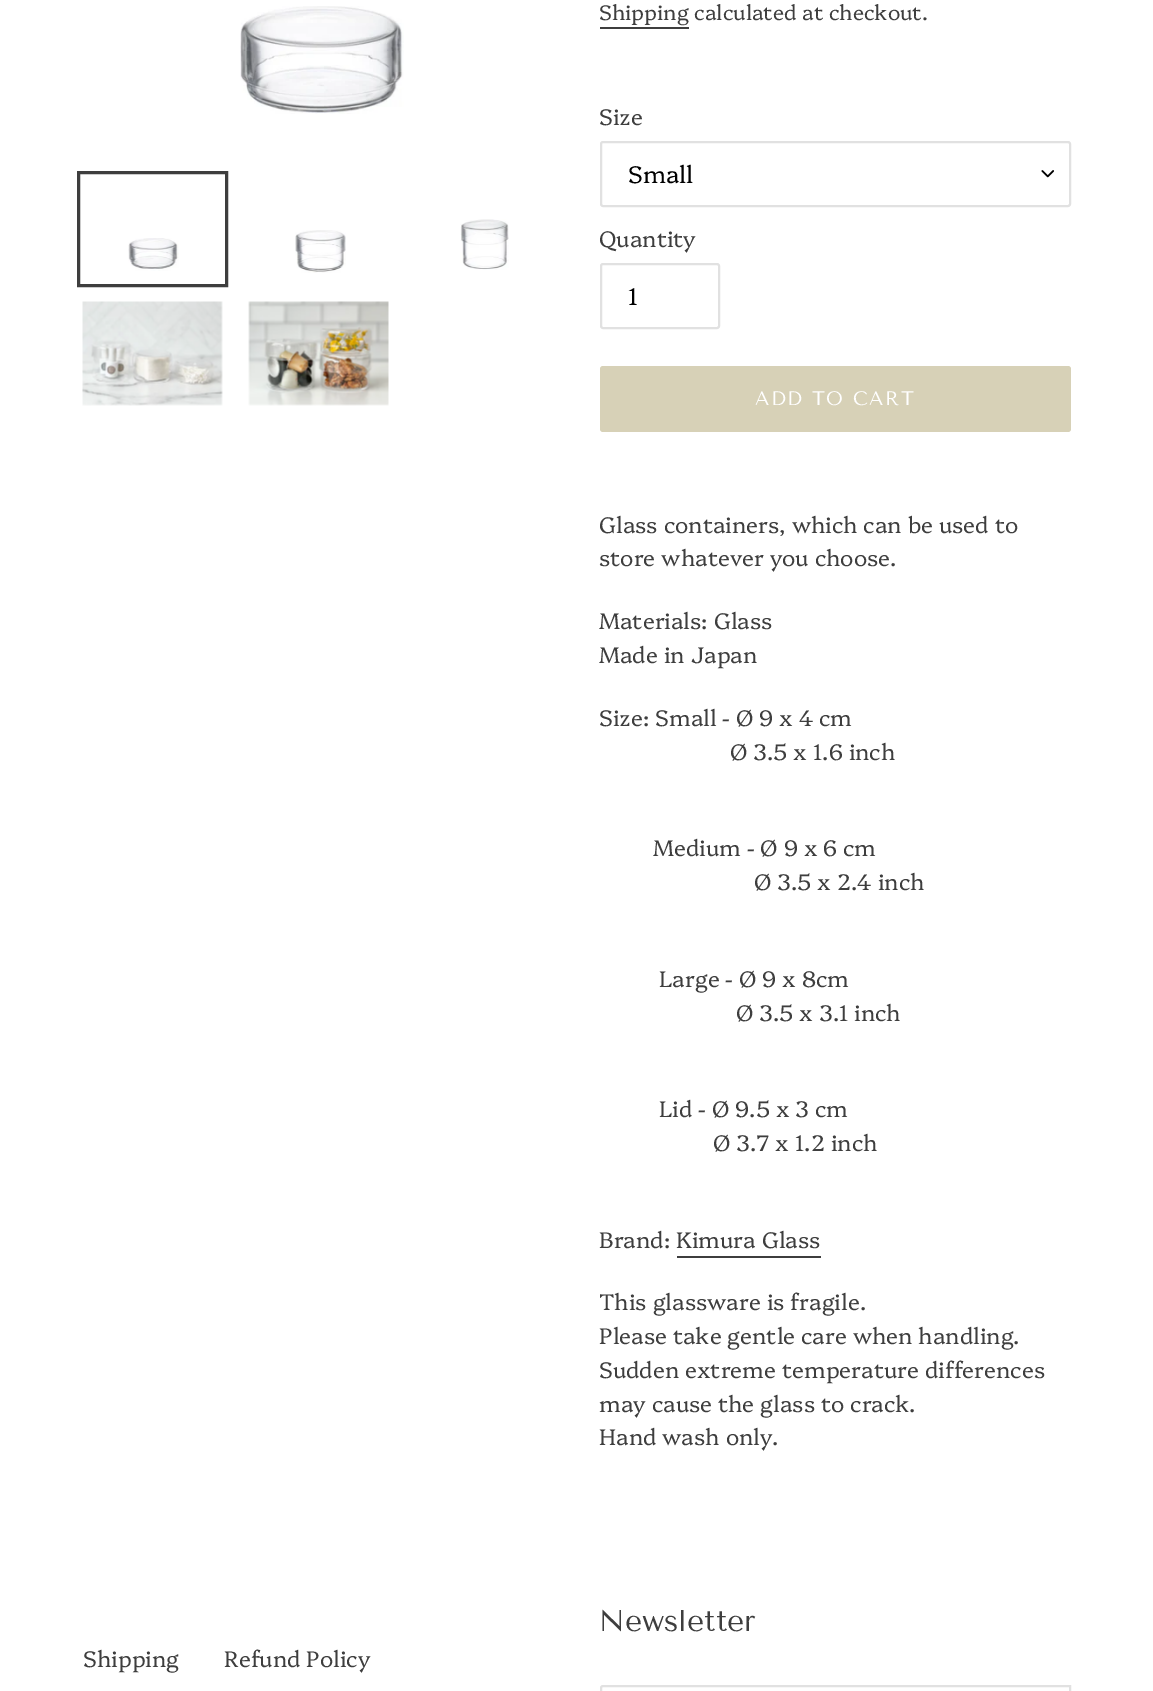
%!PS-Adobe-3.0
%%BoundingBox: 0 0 1153 1691
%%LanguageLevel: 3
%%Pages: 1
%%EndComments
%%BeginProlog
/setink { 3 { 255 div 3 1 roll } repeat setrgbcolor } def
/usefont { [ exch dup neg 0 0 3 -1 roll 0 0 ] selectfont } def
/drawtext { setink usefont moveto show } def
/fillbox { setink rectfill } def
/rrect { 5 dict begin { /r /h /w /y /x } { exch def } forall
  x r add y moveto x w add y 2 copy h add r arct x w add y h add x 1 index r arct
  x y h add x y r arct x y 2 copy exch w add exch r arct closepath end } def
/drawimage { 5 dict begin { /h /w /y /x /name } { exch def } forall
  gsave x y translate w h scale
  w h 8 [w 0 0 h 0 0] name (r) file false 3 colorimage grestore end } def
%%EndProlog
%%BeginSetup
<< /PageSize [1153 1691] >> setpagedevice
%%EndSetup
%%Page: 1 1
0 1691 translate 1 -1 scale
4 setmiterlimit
0 0 1153 1691 255 255 255 fillbox
(assets/img1.rgb) 240 6 164 108 drawimage
62 62 62 setink
3 setlinewidth
78.5 172.5 148 113 rectstroke
(assets/img2.rgb) 128 238 51 33 drawimage
(assets/img3.rgb) 295 230 51 43 drawimage
(assets/img4.rgb) 460 219 49 51 drawimage
(assets/img5.rgb) 82 301 141 105 drawimage
(assets/img6.rgb) 248 301 141 105 drawimage
(Shipping calculated at checkout.) 599 20 /Platypi-Light 21 62 62 62 drawtext
600 27 89 2 62 62 62 fillbox
(Size) 599 125 /Platypi-Light 22.5 62 62 62 drawtext
(assets/img7.rgb) 1041 170 13 8 drawimage
225 225 225 setink
2 setlinewidth
601 142 469 64 2 rrect stroke
(Small) 628 183 /Platypi-Light 24 0 0 0 drawtext
(Quantity) 599 247 /Platypi-Light 22.5 62 62 62 drawtext
225 225 225 setink
601 264 118 64 2 rrect stroke
(1) 628 305 /Platypi-Light 24 0 0 0 drawtext
215 209 183 setink
600 366 471 66 3 rrect fill
/TenorSans-Regular 19.5 usefont
255 255 255 setink
755 405 moveto 1.5 0 (ADD TO CART) ashow
(Glass containers, which can be used to) 599 533 /Platypi-Light 22.5 62 62 62 drawtext
(store whatever you choose.) 599 566 /Platypi-Light 22.5 62 62 62 drawtext
(Materials: Glass) 599 629 /Platypi-Light 22.5 62 62 62 drawtext
(Made in Japan) 599 663 /Platypi-Light 22.5 62 62 62 drawtext
(Size: Small - Ø 9 x 4 cm) 599 726 /Platypi-Light 22.5 62 62 62 drawtext
(Ø 3.5 x 1.6 inch) 730 760 /Platypi-Light 22.5 62 62 62 drawtext
(Medium - Ø 9 x 6 cm) 653 856 /Platypi-Light 22.5 62 62 62 drawtext
(Ø 3.5 x 2.4 inch) 754 890 /Platypi-Light 22.5 62 62 62 drawtext
(Large - Ø 9 x 8cm) 659 987 /Platypi-Light 22.5 62 62 62 drawtext
(Ø 3.5 x 3.1 inch) 736 1021 /Platypi-Light 22.5 62 62 62 drawtext
(Lid - Ø 9.5 x 3 cm) 659 1117 /Platypi-Light 22.5 62 62 62 drawtext
(Ø 3.7 x 1.2 inch) 713 1151 /Platypi-Light 22.5 62 62 62 drawtext
(Brand: Kimura Glass) 599 1248 /Platypi-Light 22.5 62 62 62 drawtext
677 1256 144 2 62 62 62 fillbox
(This glassware is fragile.) 599 1310 /Platypi-Light 22.5 62 62 62 drawtext
(Please take gentle care when handling.) 599 1344 /Platypi-Light 22.5 62 62 62 drawtext
(Sudden extreme temperature differences) 599 1378 /Platypi-Light 22.5 62 62 62 drawtext
(may cause the glass to crack.) 599 1412 /Platypi-Light 22.5 62 62 62 drawtext
(Hand wash only.) 599 1445 /Platypi-Light 22.5 62 62 62 drawtext
(Newsletter) 599 1631 /TenorSans-Regular 30 62 62 62 drawtext
225 225 225 setink
603 1686 moveto 1070 1686 lineto 1070 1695 lineto 603 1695 lineto 602 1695 601 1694 601 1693 curveto 601 1688 lineto 601 1687 602 1686 603 1686 curveto closepath stroke
(Shipping) 83 1667 /Platypi-Light 22.5 62 62 62 drawtext
(Refund Policy) 224 1667 /Platypi-Light 22.5 62 62 62 drawtext
showpage
%%EOF
